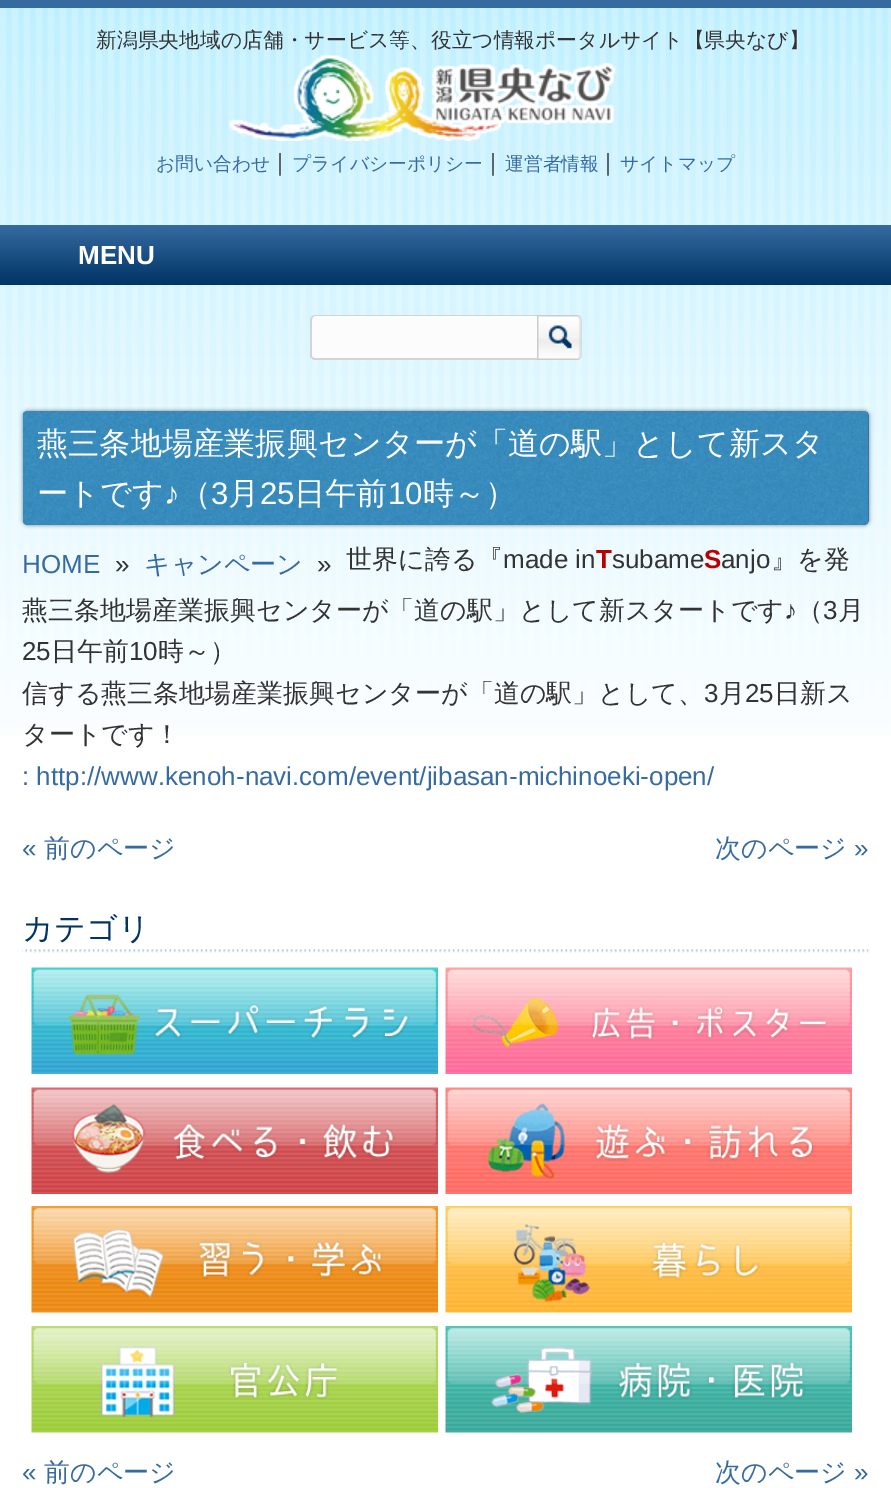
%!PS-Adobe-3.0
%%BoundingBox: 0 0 891 1488
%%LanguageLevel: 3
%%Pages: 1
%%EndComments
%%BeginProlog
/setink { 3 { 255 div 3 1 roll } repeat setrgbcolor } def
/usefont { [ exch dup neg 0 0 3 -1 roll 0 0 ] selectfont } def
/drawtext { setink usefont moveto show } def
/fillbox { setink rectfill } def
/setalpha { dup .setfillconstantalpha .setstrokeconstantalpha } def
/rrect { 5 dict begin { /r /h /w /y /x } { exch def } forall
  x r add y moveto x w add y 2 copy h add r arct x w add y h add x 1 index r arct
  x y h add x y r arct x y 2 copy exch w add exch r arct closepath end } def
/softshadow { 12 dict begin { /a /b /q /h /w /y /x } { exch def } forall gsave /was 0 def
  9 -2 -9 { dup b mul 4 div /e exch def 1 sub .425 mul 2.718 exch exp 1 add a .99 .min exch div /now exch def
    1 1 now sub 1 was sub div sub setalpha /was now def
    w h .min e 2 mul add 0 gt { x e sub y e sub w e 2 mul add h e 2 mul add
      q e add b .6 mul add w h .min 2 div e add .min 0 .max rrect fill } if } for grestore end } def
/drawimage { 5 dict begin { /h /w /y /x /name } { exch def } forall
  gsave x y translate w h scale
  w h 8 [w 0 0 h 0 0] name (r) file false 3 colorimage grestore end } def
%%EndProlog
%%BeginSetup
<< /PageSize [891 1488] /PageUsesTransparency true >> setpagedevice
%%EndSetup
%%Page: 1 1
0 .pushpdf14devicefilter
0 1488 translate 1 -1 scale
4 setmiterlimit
0 0 891 1488 255 255 255 fillbox
(assets/img1.rgb) 0 8 891 728 drawimage
0 0 891 8 54 107 161 fillbox
(新潟県央地域の店舗・サービス等、役立つ情報ポータルサイト【県央なび】) 96 47 /WenQuanYiZenHei-Medium 20.8 51 51 51 drawtext
(assets/img2.rgb) 229 55 387 86 drawimage
(お問い合わせ) 156 170 /WenQuanYiZenHei-Medium 18.75 54 107 161 drawtext
(│) 275 170 /LiberationSans-Regular 18.75 51 51 51 drawtext
(プライバシーポリシー) 292 170 /WenQuanYiZenHei-Medium 18.75 54 107 161 drawtext
(│) 488 170 /LiberationSans-Regular 18.75 51 51 51 drawtext
(運営者情報) 505 170 /WenQuanYiZenHei-Medium 18.75 54 107 161 drawtext
(│) 603 170 /LiberationSans-Regular 18.75 51 51 51 drawtext
(サイトマップ) 620 170 /WenQuanYiZenHei-Medium 18.75 54 107 161 drawtext
gsave 0 225 moveto 891 225 lineto 891 285 lineto 0 285 lineto closepath clip newpath
<< /ShadingType 2 /ColorSpace /DeviceRGB /Coords [446 225 446 285] /Extend [true true] /Function << /FunctionType 2 /Domain [0 1] /C0 [0.212 0.42 0.631] /C1 [0 0.204 0.396] /N 1 >> >> shfill grestore
(MENU) 78 264 /LiberationSans-Bold 26 255 255 255 drawtext
252 252 252 setink
316 315 moveto 537 315 lineto 537 360 lineto 316 360 lineto 313 360 311 358 311 355 curveto 311 320 lineto 311 317 313 315 316 315 curveto closepath fill
212 212 215 setink
315 315 moveto 537 315 lineto 537 360 lineto 315 360 lineto 313 360 310 358 310 356 curveto 310 320 lineto 310 317 313 315 315 315 curveto closepath 315 316 moveto 537 316 lineto 537 358 lineto 315 358 lineto 313 358 312 357 312 356 curveto 312 320 lineto 312 318 313 316 315 316 curveto closepath eofill
(assets/img3.rgb) 537 315 45 45 drawimage
0 0 0 setink
23 411 846 114 5 2 0.5 softshadow
54 107 161 setink
23 411 846 114 5 rrect fill
(assets/img4.rgb) 22 411 847 114 drawimage
(燕三条地場産業振興センターが「道の駅」として新スタ) 37 454 /WenQuanYiZenHei-Medium 31.2 255 255 255 drawtext
(ートです) 37 504 /WenQuanYiZenHei-Medium 31.2 255 255 255 drawtext
(♪) 164 504 /LiberationSans-Regular 31.2 255 255 255 drawtext
(（) 180 504 /WenQuanYiZenHei-Medium 31.2 255 255 255 drawtext
(3) 211 504 /LiberationSans-Regular 31.2 255 255 255 drawtext
(月) 228 504 /WenQuanYiZenHei-Medium 31.2 255 255 255 drawtext
(25) 260 504 /LiberationSans-Regular 31.2 255 255 255 drawtext
(日午前) 294 504 /WenQuanYiZenHei-Medium 31.2 255 255 255 drawtext
(10) 388 504 /LiberationSans-Regular 31.2 255 255 255 drawtext
(時～）) 423 504 /WenQuanYiZenHei-Medium 31.2 255 255 255 drawtext
(HOME) 22 573 /LiberationSans-Regular 26 54 107 161 drawtext
(») 115 573 /LiberationSans-Regular 26 51 51 51 drawtext
(キャンペーン) 144 573 /WenQuanYiZenHei-Medium 26 54 107 161 drawtext
(») 317 573 /LiberationSans-Regular 26 51 51 51 drawtext
(燕三条地場産業振興センターが「道の駅」として新スタートです) 22 619 /WenQuanYiZenHei-Medium 26 51 51 51 drawtext
(♪) 784 619 /LiberationSans-Regular 26 51 51 51 drawtext
(（) 797 619 /WenQuanYiZenHei-Medium 26 51 51 51 drawtext
(3) 823 619 /LiberationSans-Regular 26 51 51 51 drawtext
(月) 838 619 /WenQuanYiZenHei-Medium 26 51 51 51 drawtext
(25) 22 660 /LiberationSans-Regular 26 51 51 51 drawtext
(日午前) 51 660 /WenQuanYiZenHei-Medium 26 51 51 51 drawtext
(10) 129 660 /LiberationSans-Regular 26 51 51 51 drawtext
(時～）) 158 660 /WenQuanYiZenHei-Medium 26 51 51 51 drawtext
(世界に誇る『) 346 568 /WenQuanYiZenHei-Medium 26 51 51 51 drawtext
(made in) 503 568 /LiberationSans-Regular 26 51 51 51 drawtext
(T) 596 568 /LiberationSans-Bold 26 187 0 0 drawtext
(subame) 612 568 /LiberationSans-Regular 26 51 51 51 drawtext
(S) 704 568 /LiberationSans-Bold 26 187 0 0 drawtext
(anjo) 721 568 /LiberationSans-Regular 26 51 51 51 drawtext
(』を発) 771 568 /WenQuanYiZenHei-Medium 26 51 51 51 drawtext
(信する燕三条地場産業振興センターが「道の駅」として、) 22 702 /WenQuanYiZenHei-Medium 26 51 51 51 drawtext
(3) 704 702 /LiberationSans-Regular 26 51 51 51 drawtext
(月) 719 702 /WenQuanYiZenHei-Medium 26 51 51 51 drawtext
(25) 745 702 /LiberationSans-Regular 26 51 51 51 drawtext
(日新ス) 774 702 /WenQuanYiZenHei-Medium 26 51 51 51 drawtext
(タートです！) 22 743 /WenQuanYiZenHei-Medium 26 51 51 51 drawtext
(: http://www.kenoh-navi.com/event/jibasan-michinoeki-open/) 22 785 /LiberationSans-Regular 26 54 107 161 drawtext
(«) 22 857 /LiberationSans-Regular 26 54 107 161 drawtext
(前のページ) 44 857 /WenQuanYiZenHei-Medium 26 54 107 161 drawtext
(次のページ) 715 857 /WenQuanYiZenHei-Medium 26 54 107 161 drawtext
(») 854 857 /LiberationSans-Regular 26 54 107 161 drawtext
(assets/img5.rgb) 22 949 847 4 drawimage
(カテゴリ) 22 939 /WenQuanYiZenHei-Medium 31.2 0 52 101 drawtext
(assets/img6.rgb) 31 967 407 107 drawimage
(assets/img7.rgb) 445 967 407 107 drawimage
(assets/img8.rgb) 31 1087 407 107 drawimage
(assets/img9.rgb) 445 1087 407 107 drawimage
(assets/img10.rgb) 31 1206 407 107 drawimage
(assets/img11.rgb) 445 1206 407 107 drawimage
(assets/img12.rgb) 31 1326 407 107 drawimage
(assets/img13.rgb) 445 1326 407 107 drawimage
(«) 22 1481 /LiberationSans-Regular 26 54 107 161 drawtext
(前のページ) 44 1481 /WenQuanYiZenHei-Medium 26 54 107 161 drawtext
(次のページ) 715 1481 /WenQuanYiZenHei-Medium 26 54 107 161 drawtext
(») 854 1481 /LiberationSans-Regular 26 54 107 161 drawtext
.poppdf14devicefilter showpage
%%EOF
